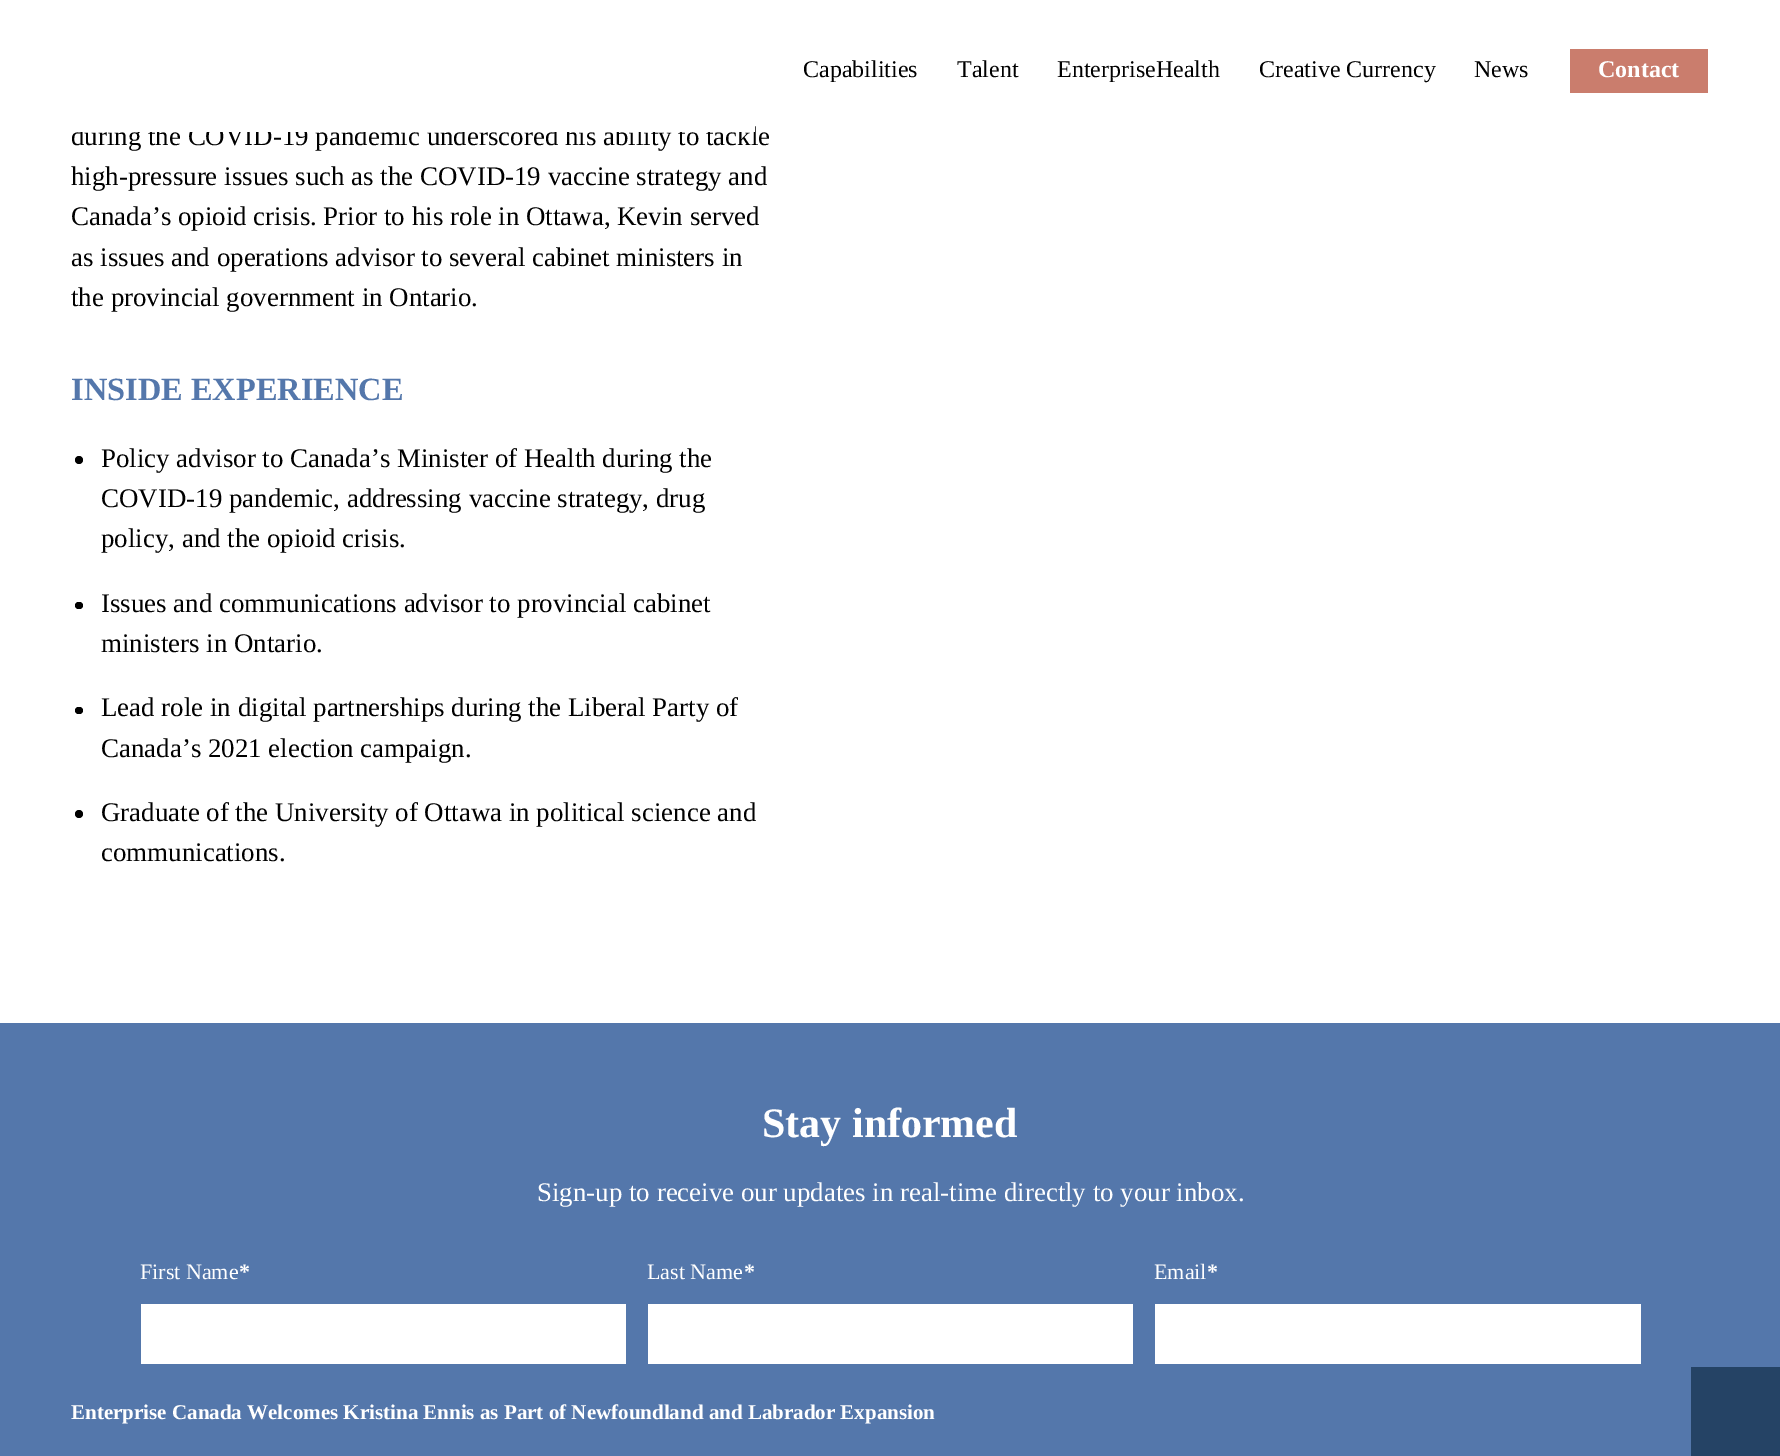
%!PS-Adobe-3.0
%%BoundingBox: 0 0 1780 1456
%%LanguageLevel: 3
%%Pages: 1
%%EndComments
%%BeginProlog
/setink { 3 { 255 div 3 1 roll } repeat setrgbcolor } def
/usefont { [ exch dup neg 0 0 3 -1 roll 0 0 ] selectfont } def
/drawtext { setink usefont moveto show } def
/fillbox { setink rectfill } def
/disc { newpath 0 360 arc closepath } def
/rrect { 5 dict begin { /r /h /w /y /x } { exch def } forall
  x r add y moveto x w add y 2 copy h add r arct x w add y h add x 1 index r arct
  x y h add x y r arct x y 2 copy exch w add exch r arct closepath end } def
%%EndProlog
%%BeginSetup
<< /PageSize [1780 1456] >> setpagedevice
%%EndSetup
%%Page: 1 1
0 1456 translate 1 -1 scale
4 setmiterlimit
0 0 1780 1456 255 255 255 fillbox
(during the COVID-19 pandemic underscored his ability to tackle) 71 145 /LiberationSerif-Regular 26.9 0 0 0 drawtext
78 126 677 6 255 255 255 fillbox
(Capabilities) 803 77 /LiberationSerif-Regular 24 0 0 0 drawtext
(Talent) 957 77 /LiberationSerif-Regular 24 0 0 0 drawtext
(EnterpriseHealth) 1057 77 /LiberationSerif-Regular 24 0 0 0 drawtext
(Creative Currency) 1259 77 /LiberationSerif-Regular 24 0 0 0 drawtext
(News) 1474 77 /LiberationSerif-Regular 24 0 0 0 drawtext
1570 49 138 44 202 125 109 fillbox
(Contact) 1598 77 /LiberationSerif-Bold 24 255 255 255 drawtext
(high-pressure issues such as the COVID-19 vaccine strategy and) 71 185 /LiberationSerif-Regular 26.9 0 0 0 drawtext
(Canada’s opioid crisis. Prior to his role in Ottawa, Kevin served) 71 225 /LiberationSerif-Regular 26.9 0 0 0 drawtext
(as issues and operations advisor to several cabinet ministers in) 71 266 /LiberationSerif-Regular 26.9 0 0 0 drawtext
(the provincial government in Ontario.) 71 306 /LiberationSerif-Regular 26.9 0 0 0 drawtext
(INSIDE EXPERIENCE) 71 400 /LiberationSerif-Bold 32.4 84 119 171 drawtext
0 0 0 setink
79 460 4 disc fill
(Policy advisor to Canada’s Minister of Health during the) 101 467 /LiberationSerif-Regular 26.9 0 0 0 drawtext
(COVID-19 pandemic, addressing vaccine strategy, drug) 101 507 /LiberationSerif-Regular 26.9 0 0 0 drawtext
(policy, and the opioid crisis.) 101 547 /LiberationSerif-Regular 26.9 0 0 0 drawtext
75 602 8 7 3.5 rrect fill
(Issues and communications advisor to provincial cabinet) 101 612 /LiberationSerif-Regular 26.9 0 0 0 drawtext
(ministers in Ontario.) 101 652 /LiberationSerif-Regular 26.9 0 0 0 drawtext
75 707 8 7 3.5 rrect fill
(Lead role in digital partnerships during the Liberal Party of) 101 716 /LiberationSerif-Regular 26.9 0 0 0 drawtext
(Canada’s 2021 election campaign.) 101 757 /LiberationSerif-Regular 26.9 0 0 0 drawtext
79 814 4 disc fill
(Graduate of the University of Ottawa in political science and) 101 821 /LiberationSerif-Regular 26.9 0 0 0 drawtext
(communications.) 101 861 /LiberationSerif-Regular 26.9 0 0 0 drawtext
0 1023 1780 344 84 119 171 fillbox
(Stay informed) 762 1137 /LiberationSerif-Bold 42 255 255 255 drawtext
(Sign-up to receive our updates in real-time directly to your inbox.) 537 1201 /LiberationSerif-Regular 26.9 255 255 255 drawtext
(First Name) 140 1279 /LiberationSerif-Regular 22 255 255 255 drawtext
(*) 239 1279 /LiberationSerif-Bold 22 255 255 255 drawtext
141 1304 485 60 255 255 255 fillbox
(Last Name) 647 1279 /LiberationSerif-Regular 22 255 255 255 drawtext
(*) 744 1279 /LiberationSerif-Bold 22 255 255 255 drawtext
648 1304 485 60 255 255 255 fillbox
(Email) 1154 1279 /LiberationSerif-Regular 22 255 255 255 drawtext
(*) 1207 1279 /LiberationSerif-Bold 22 255 255 255 drawtext
1155 1304 486 60 255 255 255 fillbox
0 1367 1691 89 84 119 171 fillbox
(Enterprise Canada Welcomes Kristina Ennis as Part of Newfoundland and Labrador Expansion) 71 1419 /LiberationSerif-Bold 21 255 255 255 drawtext
1691 1367 89 89 37 67 101 fillbox
showpage
%%EOF
